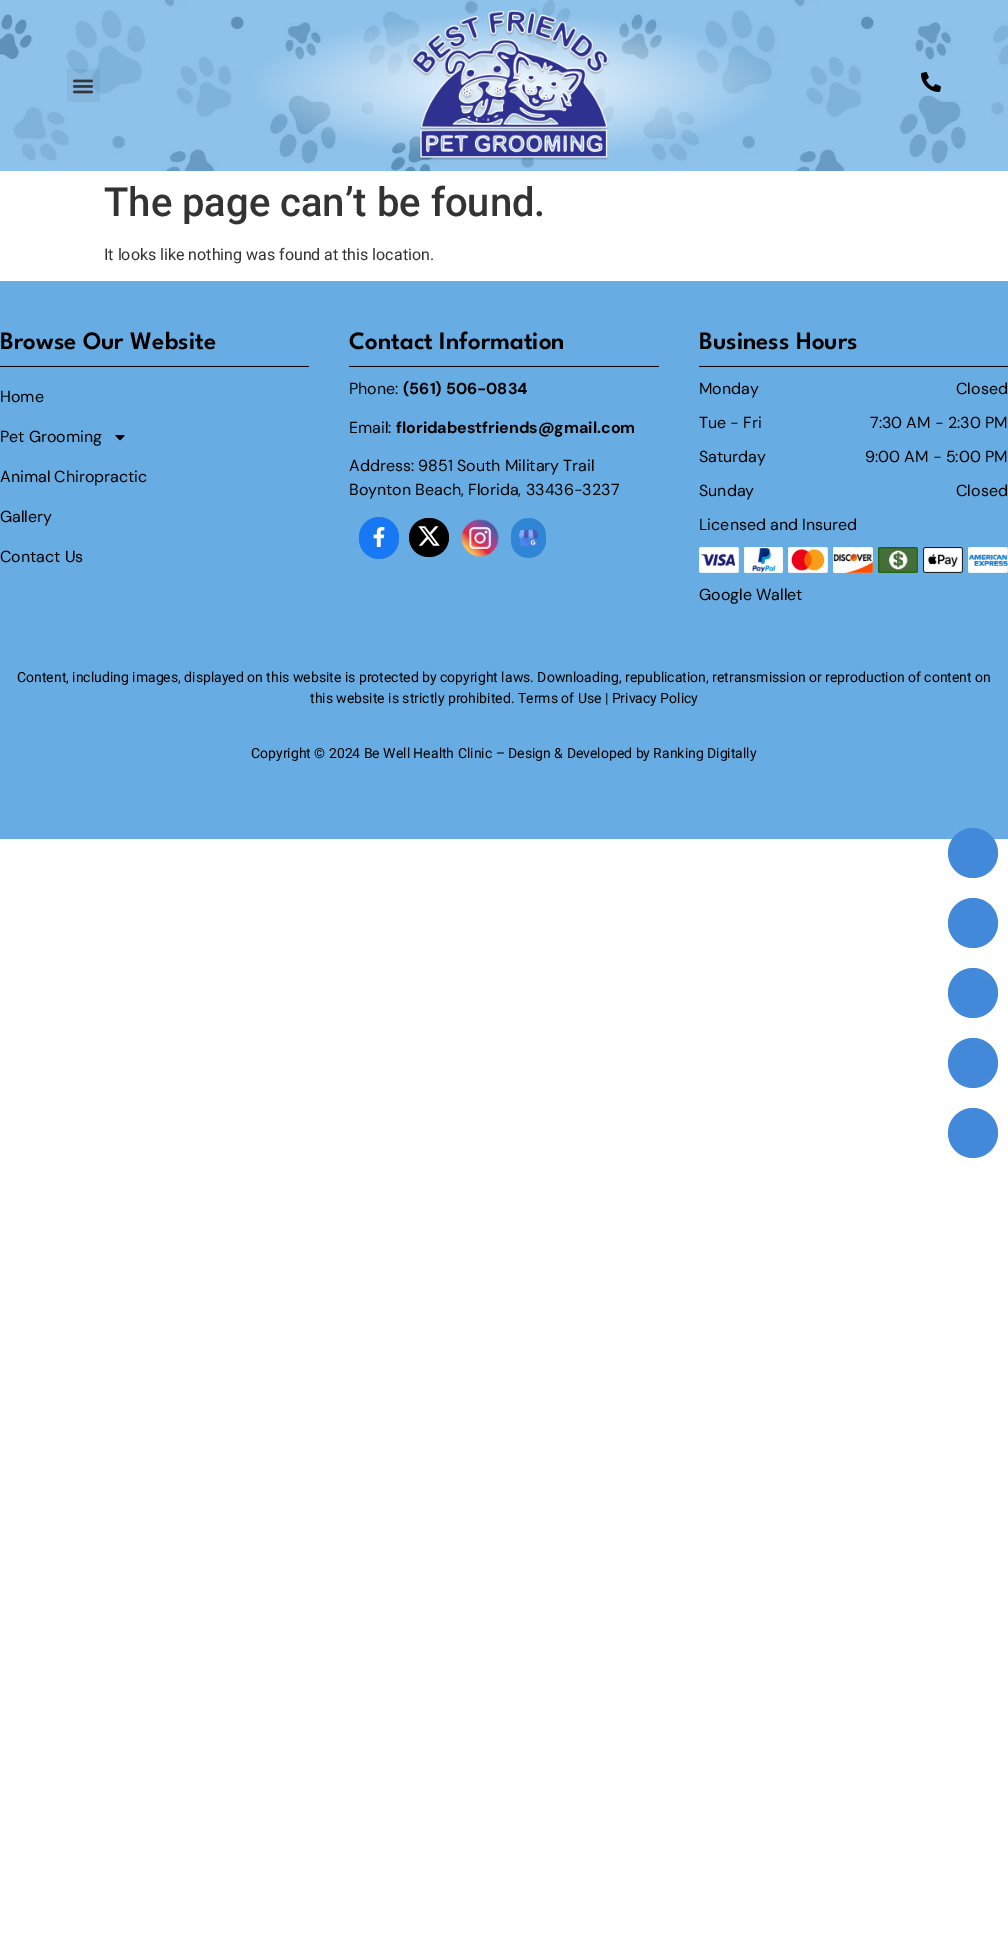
%!PS-Adobe-3.0
%%BoundingBox: 0 0 1008 1946
%%LanguageLevel: 3
%%Pages: 1
%%EndComments
%%BeginProlog
/setink { 3 { 255 div 3 1 roll } repeat setrgbcolor } def
/usefont { [ exch dup neg 0 0 3 -1 roll 0 0 ] selectfont } def
/drawtext { setink usefont moveto show } def
/fillbox { setink rectfill } def
/setalpha { dup .setfillconstantalpha .setstrokeconstantalpha } def
/disc { newpath 0 360 arc closepath } def
/rrect { 5 dict begin { /r /h /w /y /x } { exch def } forall
  x r add y moveto x w add y 2 copy h add r arct x w add y h add x 1 index r arct
  x y h add x y r arct x y 2 copy exch w add exch r arct closepath end } def
/drawimage { 5 dict begin { /h /w /y /x /name } { exch def } forall
  gsave x y translate w h scale
  w h 8 [w 0 0 h 0 0] name (r) file false 3 colorimage grestore end } def
%%EndProlog
%%BeginSetup
<< /PageSize [1008 1946] /PageUsesTransparency true >> setpagedevice
%%EndSetup
%%Page: 1 1
0 .pushpdf14devicefilter
0 1946 translate 1 -1 scale
4 setmiterlimit
0 0 1008 1946 255 255 255 fillbox
(assets/img1.rgb) 0 0 1008 171 drawimage
0.05 setalpha
67 69 33 33 0 0 0 fillbox
1 setalpha
(assets/img2.rgb) 72 79 21 15 drawimage
(assets/img3.rgb) 411 10 198 150 drawimage
(assets/img4.rgb) 921 72 20 20 drawimage
(The page can’t be found.) 104 216 /Roboto-Medium 40 51 51 51 drawtext
(It looks like nothing was found at this location.) 104 260 /Roboto-Regular 16 51 51 51 drawtext
0 281 1008 558 103 173 227 fillbox
(Browse Our Website) 0 349 /LeagueSpartan-SemiBold 25 0 0 0 drawtext
0 366 309 1 0 0 0 fillbox
(Home) 0 402 /DMSans-Regular 16 0 0 0 drawtext
(Pet Grooming) 0 442 /DMSans-Regular 16 0 0 0 drawtext
(assets/img5.rgb) 115 435 10 6 drawimage
(Animal Chiropractic) 0 482 /DMSans-Regular 16 0 0 0 drawtext
(Gallery) 0 522 /DMSans-Regular 16 0 0 0 drawtext
(Contact Us) 0 562 /DMSans-Regular 16 0 0 0 drawtext
(Contact Information) 349 349 /LeagueSpartan-SemiBold 25 0 0 0 drawtext
349 366 310 1 0 0 0 fillbox
(Phone:) 349 394 /DMSans-Regular 16 0 0 0 drawtext
(\(561\) 506-0834) 403 394 /DMSans-Bold 16 0 0 0 drawtext
(Email:) 349 433 /DMSans-Regular 16 0 0 0 drawtext
(floridabestfriends@gmail.com) 396 433 /DMSans-Bold 16 0 0 0 drawtext
(Address: 9851 South Military Trail) 349 471 /DMSans-Regular 16 0 0 0 drawtext
(Boynton Beach, Florida, 33436-3237) 349 495 /DMSans-Regular 16 0 0 0 drawtext
24 119 242 setink
359 517 40 42 20 rrect fill
(assets/img6.rgb) 373 527 12 20 drawimage
0 0 0 setink
409 518 40 39 19.5 rrect fill
(assets/img7.rgb) 418 526 22 20 drawimage
(assets/img8.rgb) 461 519 38 38 drawimage
48 134 212 setink
511 518 35 40 17.5 rrect fill
(assets/img9.rgb) 519 530 19 16 drawimage
(Business Hours) 699 349 /LeagueSpartan-SemiBold 25 0 0 0 drawtext
699 366 309 1 0 0 0 fillbox
(Monday) 699 394 /DMSans-Regular 16 0 0 0 drawtext
(Closed) 956 394 /DMSans-Regular 16 0 0 0 drawtext
(Tue - Fri) 699 428 /DMSans-Regular 16 0 0 0 drawtext
(7:30 AM - 2:30 PM) 870 428 /DMSans-Regular 16 0 0 0 drawtext
(Saturday) 699 462 /DMSans-Regular 16 0 0 0 drawtext
(9:00 AM - 5:00 PM) 865 462 /DMSans-Regular 16 0 0 0 drawtext
(Sunday) 699 496 /DMSans-Regular 16 0 0 0 drawtext
(Closed) 956 496 /DMSans-Regular 16 0 0 0 drawtext
(Licensed and Insured) 699 530 /DMSans-Regular 16 0 0 0 drawtext
(assets/img10.rgb) 699 547 40 26 drawimage
(assets/img11.rgb) 744 547 39 26 drawimage
(assets/img12.rgb) 788 547 40 26 drawimage
(assets/img13.rgb) 833 547 40 26 drawimage
(assets/img14.rgb) 878 547 40 26 drawimage
(assets/img15.rgb) 923 547 40 26 drawimage
(assets/img16.rgb) 968 547 40 26 drawimage
(Google Wallet) 699 600 /DMSans-Regular 16 0 0 0 drawtext
(Content, including images, displayed on this website is protected by copyright laws. Downloading, republication, retransmission or reproduction of content on) 17 682 /Roboto-Regular 14 0 0 0 drawtext
(this website is strictly prohibited. Terms of Use | Privacy Policy) 310 703 /Roboto-Regular 14 0 0 0 drawtext
(Copyright © 2024 Be Well Health Clinic – Design & Developed by Ranking Digitally) 251 758 /Roboto-Regular 14 0 0 0 drawtext
66 137 218 setink
973 853 25 disc fill
973 923 25 disc fill
973 993 25 disc fill
973 1063 25 disc fill
973 1133 25 disc fill
.poppdf14devicefilter showpage
%%EOF
